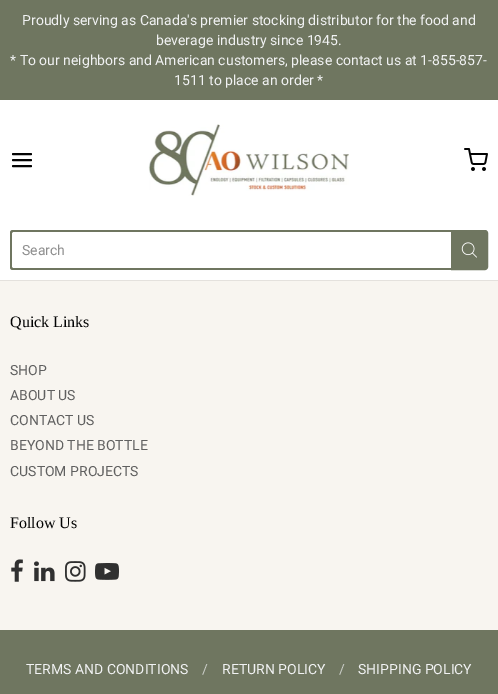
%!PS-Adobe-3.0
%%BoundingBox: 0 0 498 694
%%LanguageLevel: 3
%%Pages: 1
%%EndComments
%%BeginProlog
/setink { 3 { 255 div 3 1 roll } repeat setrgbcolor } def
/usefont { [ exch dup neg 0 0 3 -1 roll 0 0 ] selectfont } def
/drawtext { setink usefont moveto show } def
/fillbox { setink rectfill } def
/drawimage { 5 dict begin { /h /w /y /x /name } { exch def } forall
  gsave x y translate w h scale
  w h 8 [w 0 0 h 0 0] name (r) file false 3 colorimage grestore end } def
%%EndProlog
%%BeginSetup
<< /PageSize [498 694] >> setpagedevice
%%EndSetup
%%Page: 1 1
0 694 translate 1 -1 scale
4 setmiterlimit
0 0 498 694 248 245 240 fillbox
0 280 498 1 228 225 221 fillbox
0 0 498 100 111 118 96 fillbox
(Proudly serving as Canada's premier stocking distributor for the food and) 22 25 /Roboto-Regular 14 241 242 243 drawtext
(beverage industry since 1945.) 156 45 /Roboto-Regular 14 241 242 243 drawtext
(* To our neighbors and American customers, please contact us at 1-855-857-) 10 65 /Roboto-Regular 14 241 242 243 drawtext
(1511 to place an order *) 174 85 /Roboto-Regular 14 241 242 243 drawtext
0 100 498 180 255 255 255 fillbox
3 3 3 setink
2 setlinewidth
1 setlinecap
1 setlinejoin
13 160 moveto 31 160 lineto 13 154 moveto 31 154 lineto 13 166 moveto 31 166 lineto stroke
(assets/img1.rgb) 148 124 201 72 drawimage
(assets/img2.rgb) 464 148 24 23 drawimage
111 118 96 setink
13 230 moveto 451 230 lineto 451 270 lineto 13 270 lineto 11 270 10 269 10 267 curveto 10 233 lineto 10 231 11 230 13 230 curveto closepath 13 232 moveto 451 232 lineto 451 268 lineto 13 268 lineto 11 268 12 263 12 261 curveto 12 233 lineto closepath eofill
(Search) 22 255 /Roboto-Regular 14 143 143 143 drawtext
111 118 96 setink
452 231 moveto 485 231 lineto 486 231 487 232 487 233 curveto 487 267 lineto 487 268 486 269 485 269 curveto 452 269 lineto closepath gsave fill grestore
0 setlinecap
0 setlinejoin
stroke
(assets/img3.rgb) 461 242 16 16 drawimage
(Quick Links) 10 327 /LiberationSerif-Regular 16 3 3 3 drawtext
(SHOP) 10 375 /Roboto-Regular 14 96 96 96 drawtext
(ABOUT US) 10 400 /Roboto-Regular 14 96 96 96 drawtext
(CONTACT US) 10 425 /Roboto-Regular 14 96 96 96 drawtext
(BEYOND THE BOTTLE) 10 450 /Roboto-Regular 14 96 96 96 drawtext
(CUSTOM PROJECTS) 10 476 /Roboto-Regular 14 96 96 96 drawtext
(Follow Us) 10 528 /LiberationSerif-Regular 16 3 3 3 drawtext
(assets/img4.rgb) 11 559 12 23 drawimage
(assets/img5.rgb) 34 561 21 21 drawimage
(assets/img6.rgb) 65 561 21 21 drawimage
(assets/img7.rgb) 95 563 24 17 drawimage
0 630 498 64 111 118 96 fillbox
(TERMS AND CONDITIONS) 26 674 /Roboto-Regular 14 241 242 243 drawtext
(/) 202 674 /Roboto-Regular 14 202 205 199 drawtext
(RETURN POLICY) 222 674 /Roboto-Regular 14 241 242 243 drawtext
(/) 339 674 /Roboto-Regular 14 202 205 199 drawtext
(SHIPPING POLICY) 358 674 /Roboto-Regular 14 241 242 243 drawtext
showpage
%%EOF
